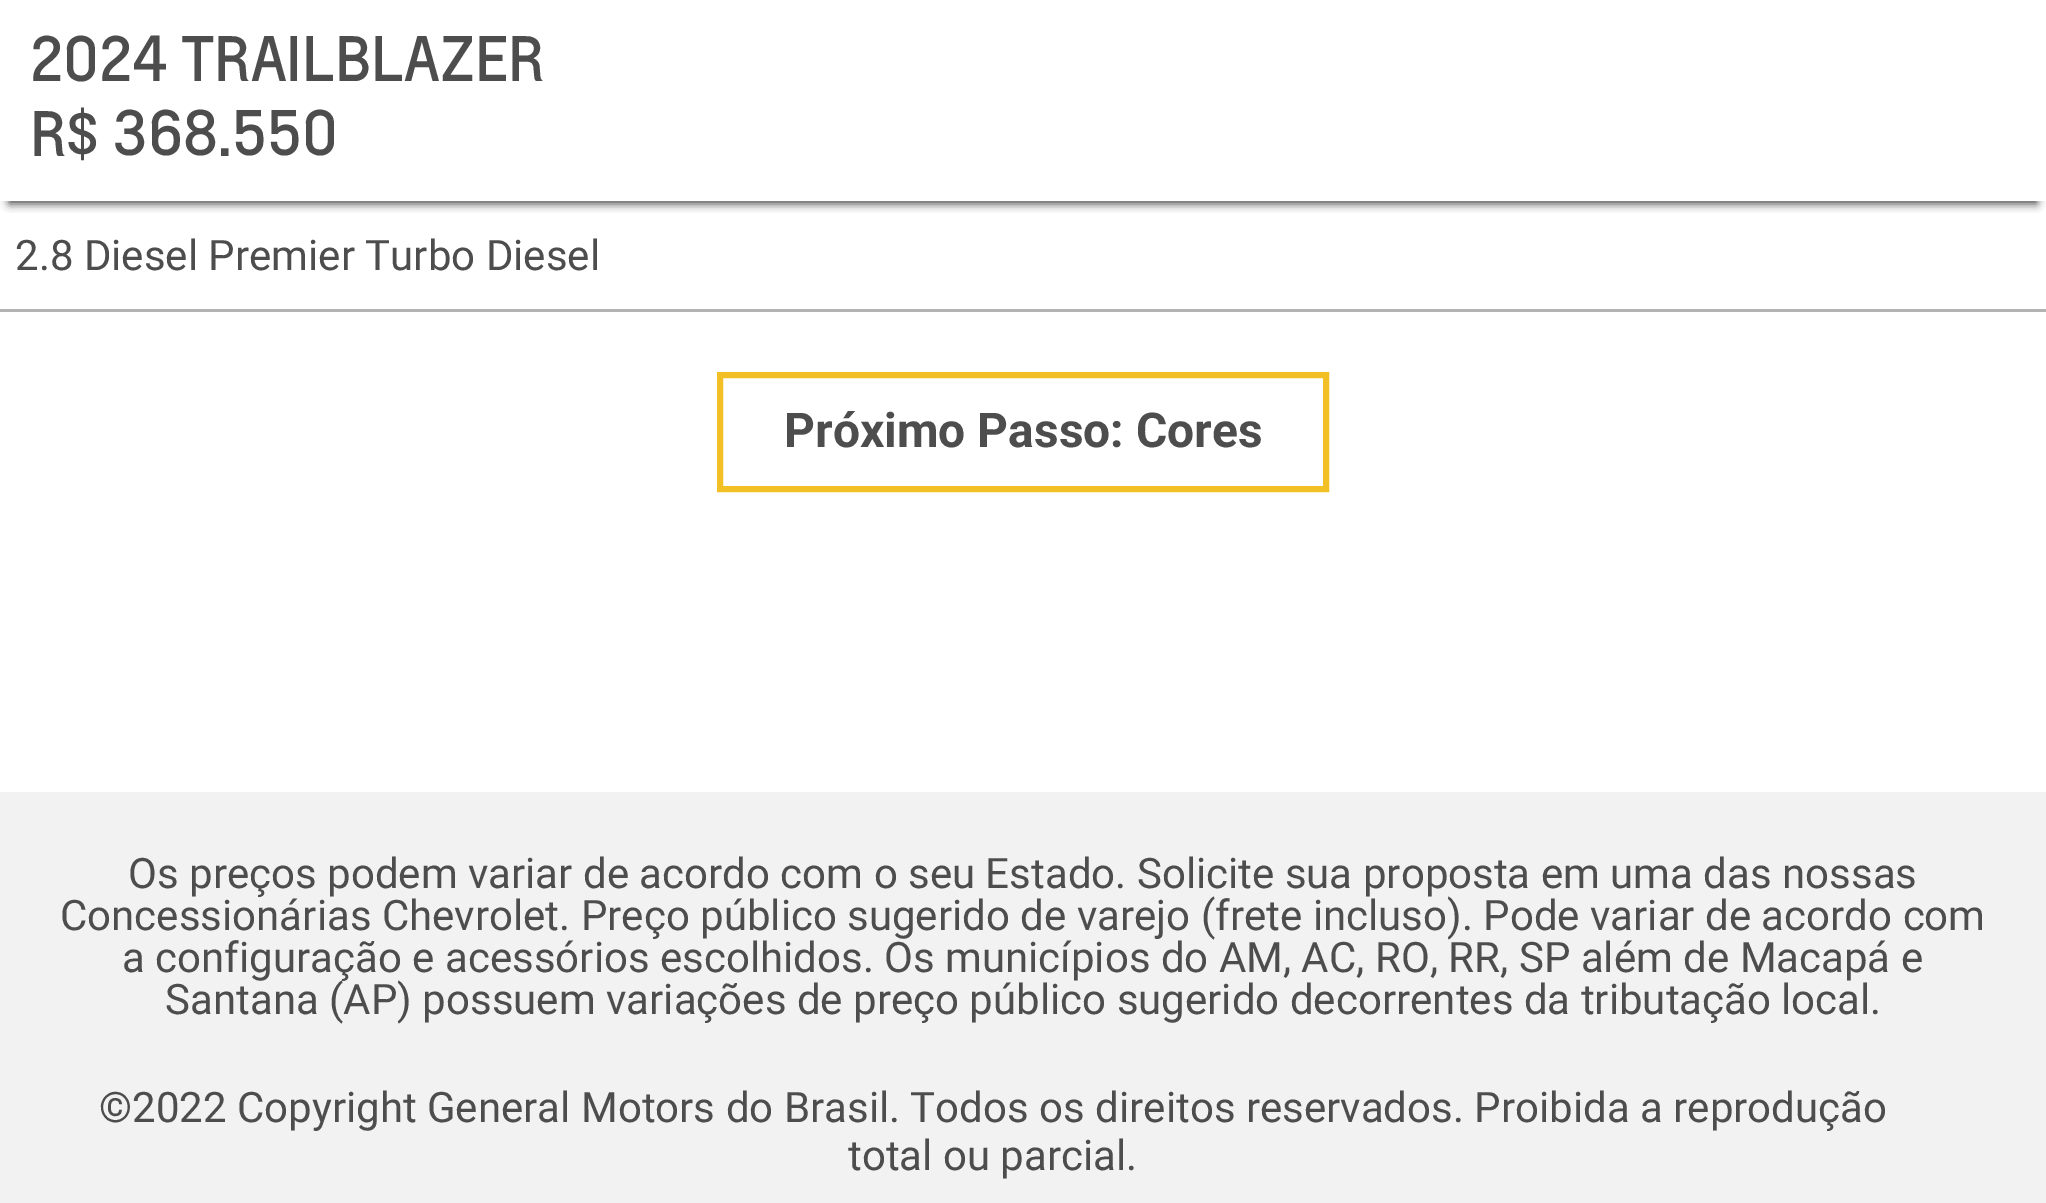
%!PS-Adobe-3.0
%%BoundingBox: 0 0 2046 1203
%%LanguageLevel: 3
%%Pages: 1
%%EndComments
%%BeginProlog
/setink { 3 { 255 div 3 1 roll } repeat setrgbcolor } def
/usefont { [ exch dup neg 0 0 3 -1 roll 0 0 ] selectfont } def
/drawtext { setink usefont moveto show } def
/fillbox { setink rectfill } def
/setalpha { dup .setfillconstantalpha .setstrokeconstantalpha } def
/rrect { 5 dict begin { /r /h /w /y /x } { exch def } forall
  x r add y moveto x w add y 2 copy h add r arct x w add y h add x 1 index r arct
  x y h add x y r arct x y 2 copy exch w add exch r arct closepath end } def
/softshadow { 12 dict begin { /a /b /q /h /w /y /x } { exch def } forall gsave /was 0 def
  9 -2 -9 { dup b mul 4 div /e exch def 1 sub .425 mul 2.718 exch exp 1 add a .99 .min exch div /now exch def
    1 1 now sub 1 was sub div sub setalpha /was now def
    w h .min e 2 mul add 0 gt { x e sub y e sub w e 2 mul add h e 2 mul add
      q e add b .6 mul add w h .min 2 div e add .min 0 .max rrect fill } if } for grestore end } def
%%EndProlog
%%BeginSetup
<< /PageSize [2046 1203] /PageUsesTransparency true >> setpagedevice
%%EndSetup
%%Page: 1 1
0 .pushpdf14devicefilter
0 1203 translate 1 -1 scale
4 setmiterlimit
0 0 2046 1203 255 255 255 fillbox
gsave
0 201 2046 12 rectclip
77 77 77 setink
9 21 2028 183 0 4.5 1 softshadow
grestore
(2024 TRAILBLAZER) 30 81 /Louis-Regular 60 77 77 77 drawtext
(R$) 30 156 /Louis-Regular 60 77 77 77 drawtext
(3) 113 155 /Louis-Regular 60 77 77 77 drawtext
(68) 148 155 /Louis-Regular 60 77 77 77 drawtext
(.) 218 156 /Louis-Regular 60 77 77 77 drawtext
(5) 232 155 /Louis-Regular 60 77 77 77 drawtext
(50) 267 155 /Louis-Regular 60 77 77 77 drawtext
(2.8 Diesel Premier Turbo Diesel) 15 270 /Roboto-Regular 42 77 77 77 drawtext
0 309 2046 3 179 179 179 fillbox
242 191 36 setink
6 setlinewidth
720 375 606 114 rectstroke
(Próximo Passo: Cores) 784 447 /Roboto-Bold 48 77 77 77 drawtext
0 792 2046 411 242 242 242 fillbox
(Os preços podem variar de acordo com o seu Estado. Solicite sua proposta em uma das nossas) 128 888 /Roboto-Regular 42 77 77 77 drawtext
(Concessionárias Chevrolet. Preço público sugerido de varejo \(frete incluso\). Pode variar de acordo com) 60 930 /Roboto-Regular 42 77 77 77 drawtext
(a configuração e acessórios escolhidos. Os municípios do AM, AC, RO, RR, SP além de Macapá e) 122 972 /Roboto-Regular 42 77 77 77 drawtext
(Santana \(AP\) possuem variações de preço público sugerido decorrentes da tributação local.) 165 1014 /Roboto-Regular 42 77 77 77 drawtext
(©2022 Copyright General Motors do Brasil. Todos os direitos reservados. Proibida a reprodução) 99 1122 /Roboto-Regular 42 77 77 77 drawtext
(total ou parcial.) 848 1170 /Roboto-Regular 42 77 77 77 drawtext
.poppdf14devicefilter showpage
%%EOF
